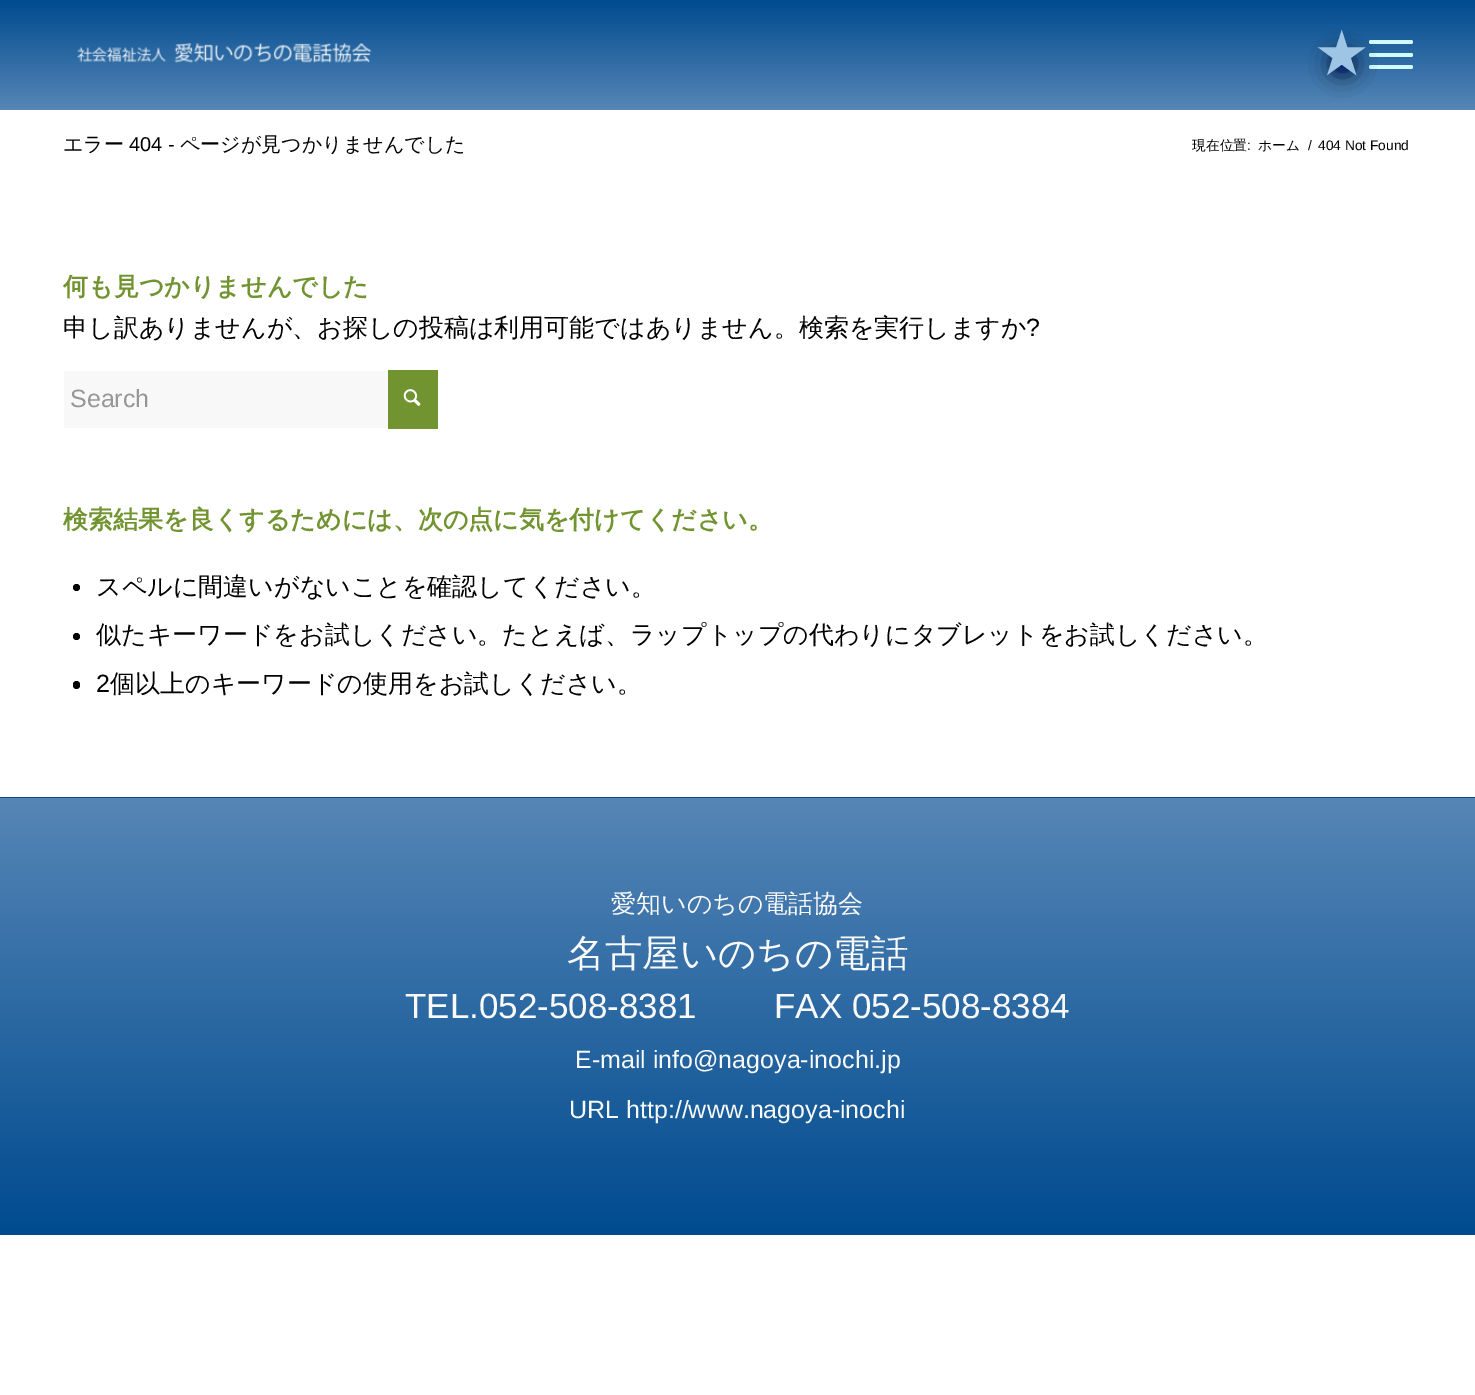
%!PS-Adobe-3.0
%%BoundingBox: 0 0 1475 1395
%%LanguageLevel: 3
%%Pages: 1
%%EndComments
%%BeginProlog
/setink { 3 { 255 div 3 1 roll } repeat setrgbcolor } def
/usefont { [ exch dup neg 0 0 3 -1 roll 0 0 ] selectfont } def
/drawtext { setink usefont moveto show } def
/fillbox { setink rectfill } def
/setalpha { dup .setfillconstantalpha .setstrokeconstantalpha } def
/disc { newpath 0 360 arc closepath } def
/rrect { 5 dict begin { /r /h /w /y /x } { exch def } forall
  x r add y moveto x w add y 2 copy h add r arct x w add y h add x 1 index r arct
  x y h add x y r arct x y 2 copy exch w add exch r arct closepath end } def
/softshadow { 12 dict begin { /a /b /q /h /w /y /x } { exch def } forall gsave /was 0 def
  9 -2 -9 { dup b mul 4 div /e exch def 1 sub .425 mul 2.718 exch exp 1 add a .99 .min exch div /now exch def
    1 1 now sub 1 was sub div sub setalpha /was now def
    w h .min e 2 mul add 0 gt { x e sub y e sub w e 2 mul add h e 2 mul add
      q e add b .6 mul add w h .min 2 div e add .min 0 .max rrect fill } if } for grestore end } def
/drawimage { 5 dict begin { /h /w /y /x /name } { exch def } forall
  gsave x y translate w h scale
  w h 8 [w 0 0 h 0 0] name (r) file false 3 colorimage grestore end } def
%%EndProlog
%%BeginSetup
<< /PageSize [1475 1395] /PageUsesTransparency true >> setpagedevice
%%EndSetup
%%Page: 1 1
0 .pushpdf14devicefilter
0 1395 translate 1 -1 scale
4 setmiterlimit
0 0 1475 1395 255 255 255 fillbox
gsave 0 0 moveto 1475 0 lineto 1475 110 lineto 0 110 lineto closepath clip newpath
<< /ShadingType 2 /ColorSpace /DeviceRGB /Coords [738 0 738 110] /Extend [true true] /Function << /FunctionType 2 /Domain [0 1] /C0 [0 0.294 0.561] /C1 [0.337 0.525 0.714] /N 1 >> >> shfill grestore
(assets/img1.rgb) 77 43 295 20 drawimage
207 252 255 setink
1369 53 44 4 2 rrect fill
1369 40 44 4 2 rrect fill
1369 65 44 4 2 rrect fill
gsave
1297 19 moveto 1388 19 lineto 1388 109 lineto 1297 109 lineto closepath 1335 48 moveto 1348 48 lineto 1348 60 lineto 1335 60 lineto closepath eoclip newpath
0 0 0 setink
1336 58 13 12 0 12.5 1 softshadow
grestore
gsave
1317 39 moveto 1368 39 lineto 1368 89 lineto 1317 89 lineto closepath 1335 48 moveto 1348 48 lineto 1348 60 lineto 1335 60 lineto closepath eoclip newpath
0 38 135 setink
1336 58 13 12 0 6 1 softshadow
grestore
(★) 1316 71 /WenQuanYiZenHei-Bold 50 158 197 228 drawtext
(エラー) 63 151 /WenQuanYiZenHei-Medium 20 0 0 0 drawtext
(404 -) 129 151 /LiberationSans-Regular 20 0 0 0 drawtext
(ページが見つかりませんでした) 180 151 /WenQuanYiZenHei-Medium 20 0 0 0 drawtext
(現在位置) 1192 150 /WenQuanYiZenHei-Medium 13.75 0 0 0 drawtext
(:) 1247 150 /LiberationSans-Regular 13.75 0 0 0 drawtext
(ホーム) 1258 150 /WenQuanYiZenHei-Medium 13.75 0 0 0 drawtext
(/) 1308 150 /LiberationSans-Regular 13.75 0 0 0 drawtext
(404 Not Found) 1318 150 /LiberationSans-Regular 13.75 0 0 0 drawtext
(何も見つかりませんでした) 63 295 /WenQuanYiZenHei-Bold 25 113 148 48 drawtext
(申し訳ありませんが、お探しの投稿は利用可能ではありません。検索を実行しますか) 63 336 /WenQuanYiZenHei-Medium 25 0 0 0 drawtext
(?) 1026 336 /LiberationSans-Regular 25 0 0 0 drawtext
64 371 324 57 248 248 248 fillbox
(Search) 70 407 /LiberationSans-Regular 25 150 150 150 drawtext
388 370 50 59 113 148 48 fillbox
(assets/img2.rgb) 403 389 18 17 drawimage
(検索結果を良くするためには、次の点に気を付けてください。) 63 528 /WenQuanYiZenHei-Bold 25 113 148 48 drawtext
0 0 0 setink
76.5 587.5 3.5 disc fill
(スペルに間違いがないことを確認してください。) 96 595 /WenQuanYiZenHei-Medium 25 0 0 0 drawtext
76.5 636.5 3.5 disc fill
(似たキーワードをお試しください。たとえば、ラップトップの代わりにタブレットをお試しください。) 96 643 /WenQuanYiZenHei-Medium 25 0 0 0 drawtext
73 681 7 8 3.5 rrect fill
(2) 96 692 /LiberationSans-Regular 25 0 0 0 drawtext
(個以上のキーワードの使用をお試しください。) 110 692 /WenQuanYiZenHei-Medium 25 0 0 0 drawtext
gsave 0 797 moveto 1475 797 lineto 1475 798 lineto 0 798 lineto closepath clip newpath
<< /ShadingType 2 /ColorSpace /DeviceRGB /Coords [738 360 738 798] /Extend [true true] /Function << /FunctionType 2 /Domain [0 1] /C0 [0.337 0.525 0.714] /C1 [0 0.294 0.561] /N 1 >> >> shfill grestore
gsave 0 798 moveto 1475 798 lineto 1475 1235 lineto 0 1235 lineto closepath clip newpath
<< /ShadingType 2 /ColorSpace /DeviceRGB /Coords [738 797 738 1235] /Extend [true true] /Function << /FunctionType 2 /Domain [0 1] /C0 [0.337 0.525 0.714] /C1 [0 0.294 0.561] /N 1 >> >> shfill grestore
(愛知いのちの電話協会) 611 912 /WenQuanYiZenHei-Medium 25 249 249 249 drawtext
(名古屋いのちの電話) 567 966 /WenQuanYiZenHei-Medium 37.5 249 249 249 drawtext
(TEL.052-508-8381) 405 1018 /LiberationSans-Regular 35 249 249 249 drawtext
(FAX 052-508-8384) 774 1018 /LiberationSans-Regular 35 249 249 249 drawtext
(E-mail info@nagoya-inochi.jp) 575 1068 /LiberationSans-Regular 25 249 249 249 drawtext
(URL http://www.nagoya-inochi) 569 1118 /LiberationSans-Regular 25 249 249 249 drawtext
.poppdf14devicefilter showpage
%%EOF
